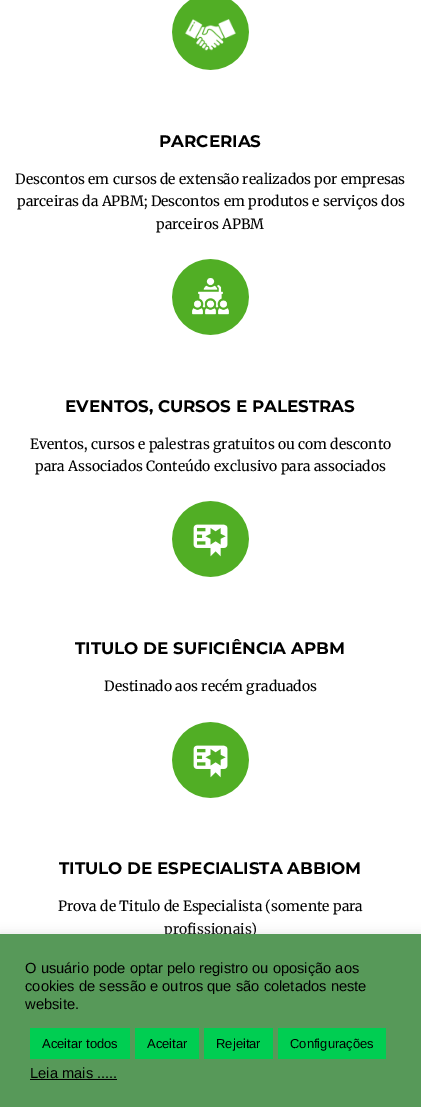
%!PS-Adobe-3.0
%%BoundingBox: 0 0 421 1107
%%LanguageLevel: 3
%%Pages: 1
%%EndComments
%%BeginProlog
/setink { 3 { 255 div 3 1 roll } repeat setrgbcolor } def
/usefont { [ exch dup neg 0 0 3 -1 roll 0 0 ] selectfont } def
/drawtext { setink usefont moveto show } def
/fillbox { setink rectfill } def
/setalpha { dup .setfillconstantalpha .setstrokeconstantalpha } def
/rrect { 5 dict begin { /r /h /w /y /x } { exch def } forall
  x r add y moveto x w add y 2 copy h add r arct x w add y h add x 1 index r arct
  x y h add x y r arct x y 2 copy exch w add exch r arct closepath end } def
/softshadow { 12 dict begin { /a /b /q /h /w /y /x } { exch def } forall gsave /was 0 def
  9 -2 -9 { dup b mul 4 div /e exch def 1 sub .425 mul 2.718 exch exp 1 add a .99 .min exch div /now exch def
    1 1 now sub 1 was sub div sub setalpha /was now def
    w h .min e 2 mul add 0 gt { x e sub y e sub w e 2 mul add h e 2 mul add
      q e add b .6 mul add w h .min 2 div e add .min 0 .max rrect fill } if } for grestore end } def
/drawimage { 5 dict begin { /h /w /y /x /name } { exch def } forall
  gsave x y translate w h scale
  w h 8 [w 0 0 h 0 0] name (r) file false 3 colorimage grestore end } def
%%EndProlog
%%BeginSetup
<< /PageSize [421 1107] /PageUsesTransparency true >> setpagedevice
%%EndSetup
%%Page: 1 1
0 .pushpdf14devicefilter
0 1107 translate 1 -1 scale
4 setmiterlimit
0 0 421 1107 255 255 255 fillbox
(assets/img1.rgb) 172 0 77 70 drawimage
(PARCERIAS) 159 147 /Montserrat-Bold 16.75 0 0 0 drawtext
(Descontos em cursos de extensão realizados por empresas) 15 184 /Merriweather-Regular 14 0 0 0 drawtext
(parceiras da APBM; Descontos em produtos e serviços dos) 17 206 /Merriweather-Regular 14 0 0 0 drawtext
(parceiros APBM) 156 229 /Merriweather-Regular 14 0 0 0 drawtext
(assets/img2.rgb) 172 259 77 76 drawimage
(EVENTOS, CURSOS E PALESTRAS) 65 412 /Montserrat-Bold 16.75 0 0 0 drawtext
(Eventos, cursos e palestras gratuitos ou com desconto) 30 449 /Merriweather-Regular 14 0 0 0 drawtext
(para Associados Conteúdo exclusivo para associados) 35 471 /Merriweather-Regular 14 0 0 0 drawtext
(assets/img3.rgb) 172 501 77 76 drawimage
(TITULO DE SUFICIÊNCIA APBM) 75 654 /Montserrat-Bold 16.75 0 0 0 drawtext
(Destinado aos recém graduados) 104 691 /Merriweather-Regular 14 0 0 0 drawtext
(assets/img3.rgb) 172 722 77 76 drawimage
(TITULO DE ESPECIALISTA ABBIOM) 59 874 /Montserrat-Bold 16.75 0 0 0 drawtext
(Prova de Titulo de Especialista \(somente para) 58 911 /Merriweather-Regular 14 0 0 0 drawtext
(profissionais\)) 164 934 /Merriweather-Regular 14 0 0 0 drawtext
172 171 171 setink
0 933 421 173 0 5 0.3 softshadow
0 934 421 173 87 153 89 fillbox
(O usuário pode optar pelo registro ou oposição aos) 25 973 /LiberationSans-Regular 14.7 0 0 0 drawtext
(cookies de sessão e outros que são coletados neste) 25 991 /LiberationSans-Regular 14.7 0 0 0 drawtext
(website.) 25 1009 /LiberationSans-Regular 14.7 0 0 0 drawtext
30 1028 100 31 0 206 82 fillbox
(Aceitar todos) 42 1048 /LiberationSans-Regular 13 0 0 0 drawtext
135 1028 64 31 0 206 82 fillbox
(Aceitar) 147 1048 /LiberationSans-Regular 13 0 0 0 drawtext
204 1028 69 31 0 206 82 fillbox
(Rejeitar) 216 1048 /LiberationSans-Regular 13 0 0 0 drawtext
278 1028 108 31 0 206 82 fillbox
(Configurações) 290 1048 /LiberationSans-Regular 13 0 0 0 drawtext
(Leia mais .....) 30 1078 /LiberationSans-Regular 14.7 0 0 0 drawtext
30 1079 87 1 0 0 0 fillbox
.poppdf14devicefilter showpage
%%EOF
